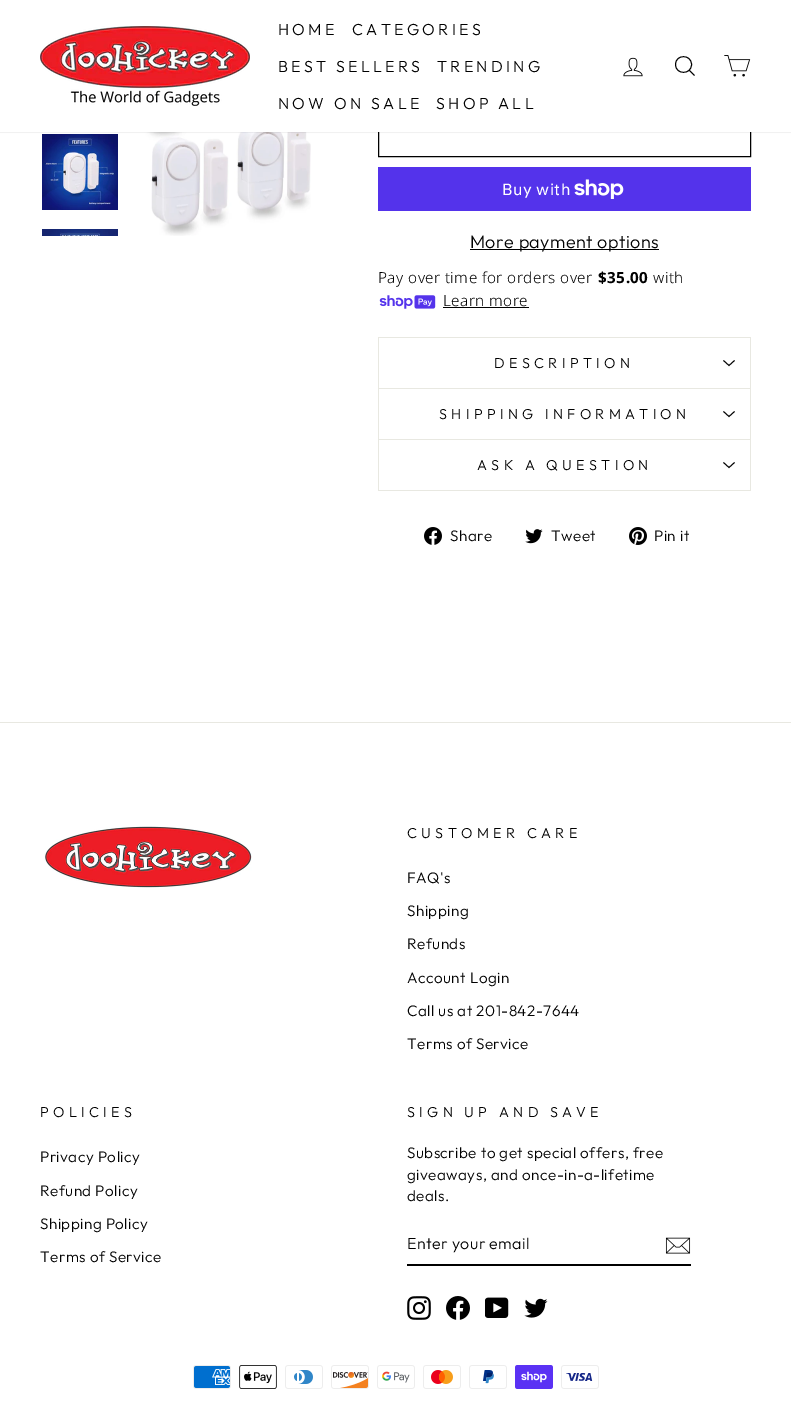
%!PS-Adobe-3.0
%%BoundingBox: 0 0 791 1418
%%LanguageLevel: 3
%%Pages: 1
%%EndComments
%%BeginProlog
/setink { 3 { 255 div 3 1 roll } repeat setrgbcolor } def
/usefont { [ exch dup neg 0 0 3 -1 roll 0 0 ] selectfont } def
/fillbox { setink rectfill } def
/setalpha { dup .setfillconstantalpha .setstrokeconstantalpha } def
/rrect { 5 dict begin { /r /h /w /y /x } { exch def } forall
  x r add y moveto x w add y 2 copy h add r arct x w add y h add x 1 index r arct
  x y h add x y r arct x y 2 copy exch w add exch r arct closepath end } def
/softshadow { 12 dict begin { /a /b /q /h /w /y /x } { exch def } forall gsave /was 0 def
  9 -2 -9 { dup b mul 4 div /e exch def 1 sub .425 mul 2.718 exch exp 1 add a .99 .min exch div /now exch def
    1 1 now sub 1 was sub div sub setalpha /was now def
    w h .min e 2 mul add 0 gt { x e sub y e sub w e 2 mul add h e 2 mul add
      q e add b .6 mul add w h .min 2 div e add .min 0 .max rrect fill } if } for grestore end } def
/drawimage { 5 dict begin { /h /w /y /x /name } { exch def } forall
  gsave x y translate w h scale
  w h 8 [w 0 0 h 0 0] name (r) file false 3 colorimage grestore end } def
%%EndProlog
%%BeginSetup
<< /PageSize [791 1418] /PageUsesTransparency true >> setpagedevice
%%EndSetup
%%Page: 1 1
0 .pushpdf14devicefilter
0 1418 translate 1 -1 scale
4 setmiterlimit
0 0 791 1418 255 255 255 fillbox
(assets/img4.rgb) 42 134 76 76 drawimage
(assets/img6.rgb) 135 132 176 104 drawimage
0 0 0 setink
378.5 107.5 372 49 rectstroke
0 0 791 132 0 0.5 0.2 softshadow
0 0 791 132 255 255 255 fillbox
(assets/img1.rgb) 40 26 210 80 drawimage
/Outfit-Light 16 usefont
0 0 0 setink
278 35 moveto 3.25 0 (HOME) ashow
352 35 moveto 3.25 0 (CATEGORIES) ashow
278 72 moveto 3.25 0 (BEST SELLERS) ashow
437 72 moveto 3.25 0 (TRENDING) ashow
278 109 moveto 3.25 0 (NOW ON SALE) ashow
436 109 moveto 3.25 0 (SHOP ALL) ashow
(assets/img2.rgb) 623 57 20 20 drawimage
0.9 setlinewidth
691.5 64.5 moveto 691.5 75 675.5 75 675.5 64.5 curveto 675.5 54 691.5 54 691.5 64.5 curveto closepath 694.5 75.5 moveto 689.5 70.5 lineto stroke
(assets/img3.rgb) 724 55 27 22 drawimage
(assets/img5.rgb) 42 229 76 7 drawimage
378 167 373 44 84 51 235 fillbox
/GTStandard-Regular 16 usefont
255 255 255 setink
502 195 moveto 0.45 0 (Buy with) ashow
(assets/img7.rgb) 574 179 50 20 drawimage
470 249 189 1 0 0 0 fillbox
/Outfit-Light 18 usefont
470 248 moveto 0.45 0 (More payment options) ashow
/NotoSans-Light 15.25 usefont
378 283 moveto 0.45 0 (Pay over time for orders over) ashow
/NotoSans-Bold 15.25 usefont
598 283 moveto 0.45 0 ($35.00) ashow
/NotoSans-Light 15.25 usefont
653 283 moveto 0.45 0 (with) ashow
(assets/img8.rgb) 379 295 57 14 drawimage
443 306 moveto 0.45 0 (Learn more) ashow
443 307 86 1 0 0 0 fillbox
378 388 373 1 232 232 225 fillbox
378 337 373 1 232 232 225 fillbox
750 337 1 51 232 232 225 fillbox
378 337 1 51 232 232 225 fillbox
/Outfit-Light 14.4 usefont
0 0 0 setink
494 368 moveto 4.3 0 (DESCRIPTION) ashow
723.5 360.5 moveto 729 365.5 lineto 734.5 360.5 lineto stroke
378 439 373 1 232 232 225 fillbox
750 389 1 50 232 232 225 fillbox
378 389 1 50 232 232 225 fillbox
0 0 0 setink
439 419 moveto 4.3 0 (SHIPPING INFORMATION) ashow
723.5 411.5 moveto 729 416.5 lineto 734.5 411.5 lineto stroke
378 490 373 1 232 232 225 fillbox
750 440 1 50 232 232 225 fillbox
378 440 1 50 232 232 225 fillbox
0 0 0 setink
477 470 moveto 4.3 0 (ASK A QUESTION) ashow
723.5 462.5 moveto 729 467.5 lineto 734.5 462.5 lineto stroke
(assets/img9.rgb) 424 527 18 18 drawimage
/Outfit-Light 15.25 usefont
450 541 moveto 0.45 0 (Share) ashow
(assets/img10.rgb) 525 529 18 15 drawimage
551 541 moveto 0.45 0 (Tweet) ashow
(assets/img11.rgb) 629 527 18 18 drawimage
654 541 moveto 0.45 0 (Pin it) ashow
0 722 791 1 232 232 225 fillbox
(assets/img12.rgb) 44 826 208 62 drawimage
/Outfit-Light 14.4 usefont
0 0 0 setink
407 838 moveto 4.3 0 (CUSTOMER CARE) ashow
/Outfit-Light 15.25 usefont
407 883 moveto 0.45 0 (FAQ's) ashow
407 916 moveto 0.45 0 (Shipping) ashow
407 949 moveto 0.45 0 (Refunds) ashow
407 983 moveto 0.45 0 (Account Login) ashow
407 1016 moveto 0.45 0 (Call us at 201-842-7644) ashow
407 1049 moveto 0.45 0 (Terms of Service) ashow
/Outfit-Light 14.4 usefont
40 1117 moveto 4.3 0 (POLICIES) ashow
/Outfit-Light 15.25 usefont
40 1162 moveto 0.45 0 (Privacy Policy) ashow
40 1196 moveto 0.45 0 (Refund Policy) ashow
40 1229 moveto 0.45 0 (Shipping Policy) ashow
40 1262 moveto 0.45 0 (Terms of Service) ashow
/Outfit-Light 14.4 usefont
407 1117 moveto 4.3 0 (SIGN UP AND SAVE) ashow
/Outfit-Light 15.25 usefont
407 1158 moveto 0.45 0 (Subscribe to get special offers, free) ashow
407 1180 moveto 0.45 0 (giveaways, and once-in-a-lifetime) ashow
407 1201 moveto 0.45 0 (deals.) ashow
407 1264 284 2 0 0 0 fillbox
/Outfit-Light 16 usefont
407 1249 moveto 0.4 0 (Enter your email) ashow
(assets/img13.rgb) 665 1237 26 17 drawimage
(assets/img14.rgb) 407 1296 24 24 drawimage
(assets/img15.rgb) 446 1296 24 24 drawimage
(assets/img16.rgb) 485 1297 24 21 drawimage
(assets/img17.rgb) 524 1298 24 20 drawimage
(assets/img18.rgb) 193 1365 38 24 drawimage
(assets/img19.rgb) 239 1365 38 24 drawimage
(assets/img20.rgb) 285 1365 38 24 drawimage
(assets/img21.rgb) 331 1365 38 24 drawimage
(assets/img22.rgb) 377 1365 38 24 drawimage
(assets/img23.rgb) 423 1365 38 24 drawimage
(assets/img24.rgb) 469 1365 38 24 drawimage
(assets/img25.rgb) 515 1365 38 24 drawimage
(assets/img26.rgb) 561 1365 38 24 drawimage
.poppdf14devicefilter showpage
%%EOF
